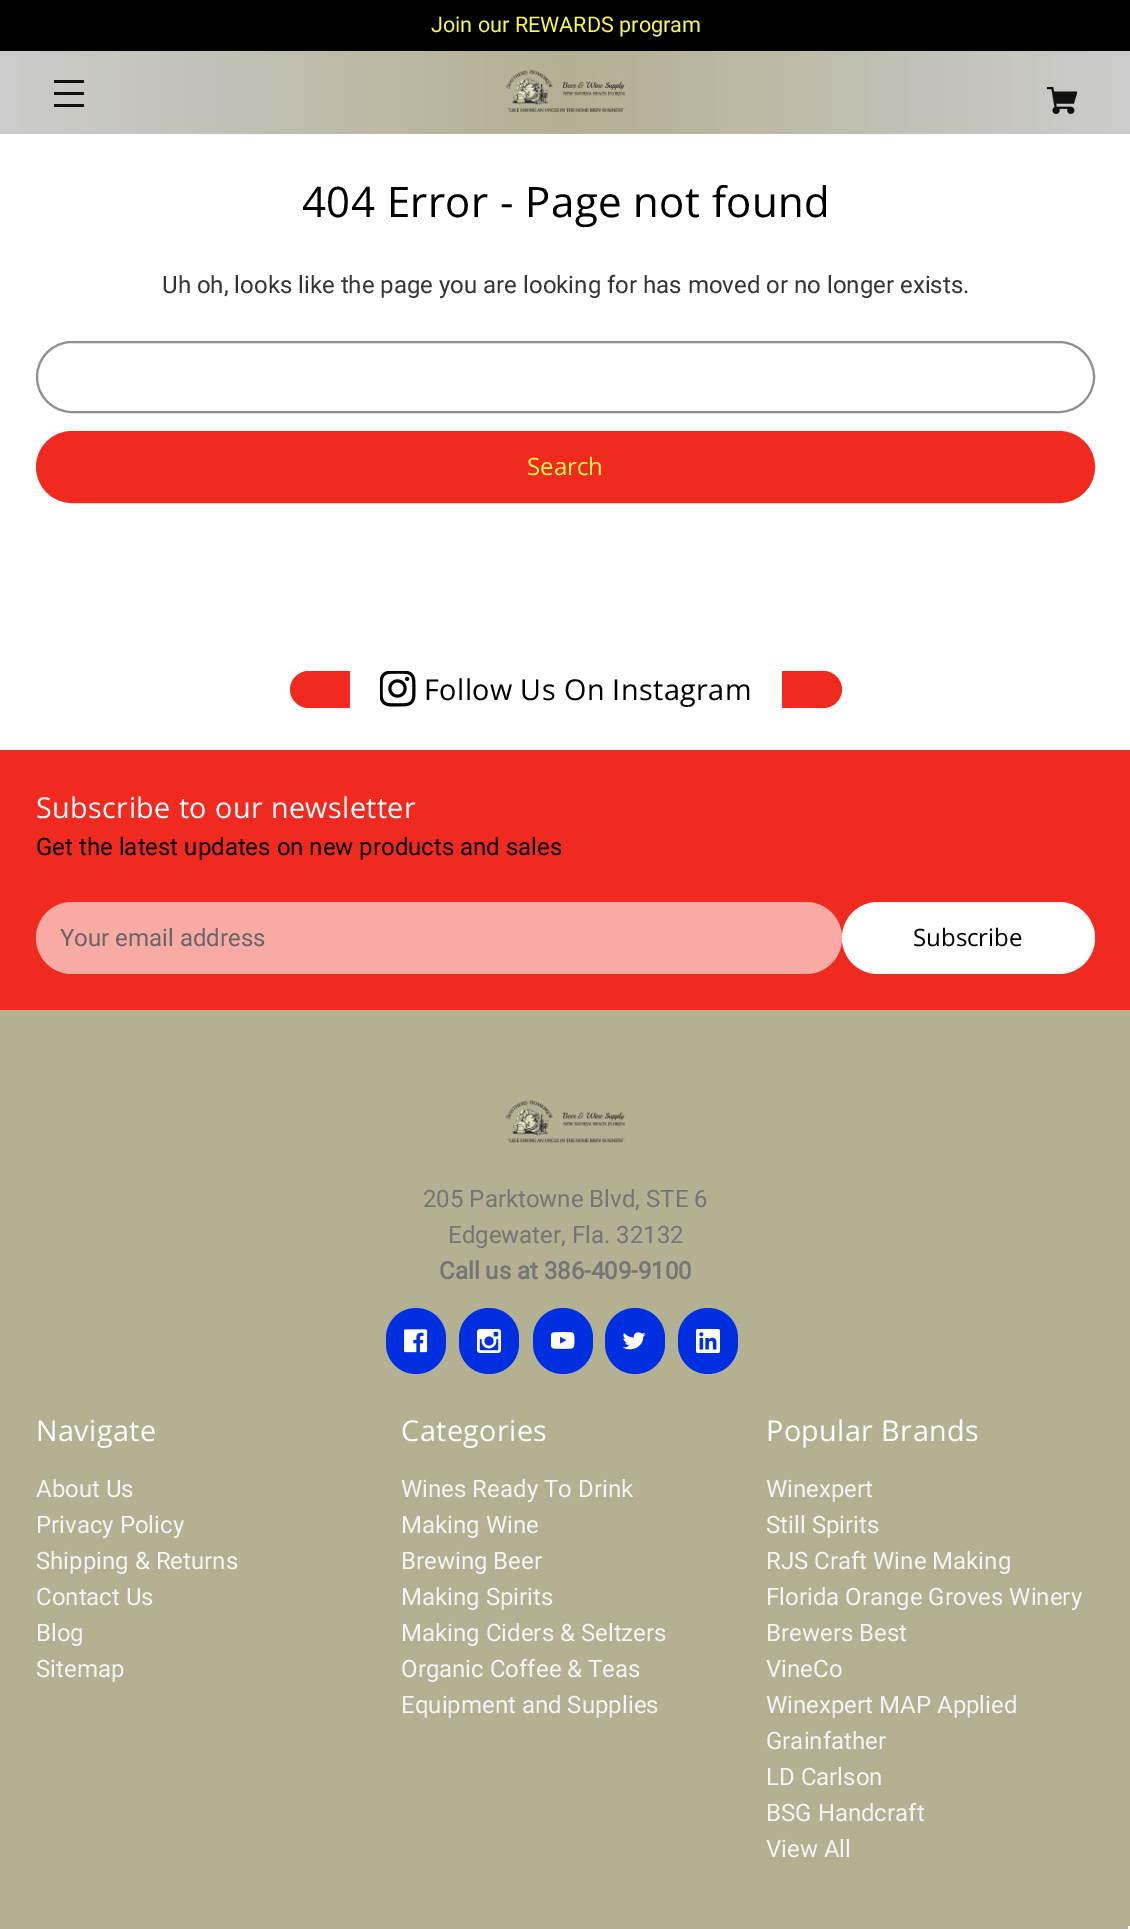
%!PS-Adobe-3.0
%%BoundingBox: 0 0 1130 1929
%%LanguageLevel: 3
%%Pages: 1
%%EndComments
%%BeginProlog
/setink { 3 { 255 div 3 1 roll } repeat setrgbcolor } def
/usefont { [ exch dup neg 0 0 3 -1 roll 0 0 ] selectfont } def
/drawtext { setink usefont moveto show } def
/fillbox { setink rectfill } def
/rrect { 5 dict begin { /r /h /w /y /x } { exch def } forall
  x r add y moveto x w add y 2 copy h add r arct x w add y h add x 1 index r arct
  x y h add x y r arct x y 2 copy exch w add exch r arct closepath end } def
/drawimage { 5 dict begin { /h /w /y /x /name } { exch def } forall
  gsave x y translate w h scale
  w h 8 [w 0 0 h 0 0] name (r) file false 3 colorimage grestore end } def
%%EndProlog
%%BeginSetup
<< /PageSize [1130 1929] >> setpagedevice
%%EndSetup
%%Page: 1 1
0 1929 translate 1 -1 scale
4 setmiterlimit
0 0 1130 1929 255 255 255 fillbox
0 0 1130 51 0 0 0 fillbox
(Join our REWARDS program) 431 32 /Roboto-Regular 21.6 246 250 78 drawtext
gsave 0 51 moveto 1130 51 lineto 1130 134 lineto 0 134 lineto closepath clip newpath
<< /ShadingType 2 /ColorSpace /DeviceRGB /Coords [0 92 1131 92] /Extend [true true] /Function << /FunctionType 3 /Domain [0 1] /Functions [<< /FunctionType 2 /Domain [0 1] /C0 [0.8 0.8 0.8] /C1 [0.706 0.69 0.573] /N 1 >> << /FunctionType 2 /Domain [0 1] /C0 [0.706 0.69 0.573] /C1 [0.8 0.8 0.8] /N 1 >>] /Bounds [0.5] /Encode [0 1 0 1] >> >> shfill grestore
54 92 30 3 17 17 17 fillbox
54 80 30 3 17 17 17 fillbox
54 104 30 3 17 17 17 fillbox
(assets/img1.rgb) 505 69 121 43 drawimage
(assets/img2.rgb) 1047 87 30 27 drawimage
/OpenSans-Regular 42 usefont
0 0 0 setink
302 217 moveto 0.4 0 (404 Error - Page not found) ashow
(Uh oh, looks like the page you are looking for has moved or no longer exists.) 162 293 /Roboto-Regular 24 51 51 51 drawtext
143 143 143 setink
2 setlinewidth
37 342 1057 70 35 rrect stroke
241 42 31 setink
37 432 1057 70 35 rrect gsave fill grestore
stroke
(Search) 527 475 /OpenSans-Regular 24 246 250 78 drawtext
241 42 31 setink
308.5 671 moveto 350 671 lineto 350 708 lineto 308.5 708 lineto 298.5 708 290 699.5 290 689.5 curveto 290 679.5 298.5 671 308.5 671 curveto closepath fill
(assets/img3.rgb) 380 671 36 36 drawimage
/OpenSans-Regular 28.75 usefont
0 0 0 setink
424 700 moveto 0.4 0 (Follow Us On Instagram) ashow
241 42 31 setink
782 671 moveto 823.5 671 lineto 833.5 671 842 679.5 842 689.5 curveto 842 699.5 833.5 708 823.5 708 curveto 782 708 lineto closepath fill
0 750 1130 260 241 42 31 fillbox
255 255 255 setink
36 818 moveto 0.4 0 (Subscribe to our newsletter) ashow
(Get the latest updates on new products and sales) 36 855 /Roboto-Regular 24 0 0 0 drawtext
249 170 165 setink
36 902 806 72 36 rrect fill
(Your email address) 60 946 /Roboto-Regular 24 102 102 102 drawtext
255 255 255 setink
842 902 253 72 36 rrect fill
(Subscribe) 913 946 /OpenSans-Regular 24 0 0 0 drawtext
0 1010 1130 919 180 176 146 fillbox
(assets/img4.rgb) 505 1099 121 44 drawimage
(205 Parktowne Blvd, STE 6) 423 1207 /Roboto-Regular 24 117 117 117 drawtext
(Edgewater, Fla. 32132) 448 1243 /Roboto-Regular 24 117 117 117 drawtext
(Call us at 386-409-9100) 439 1279 /Roboto-Bold 24 117 117 117 drawtext
0 47 225 setink
386 1308 60 66 30 rrect fill
(assets/img5.rgb) 404 1329 24 24 drawimage
459 1308 60 66 30 rrect fill
(assets/img6.rgb) 477 1329 24 24 drawimage
533 1308 60 66 30 rrect fill
(assets/img7.rgb) 551 1332 24 17 drawimage
605 1308 60 66 30 rrect fill
(assets/img8.rgb) 623 1332 23 18 drawimage
678 1308 60 66 30 rrect fill
(assets/img9.rgb) 696 1329 24 24 drawimage
/OpenSans-Regular 28.75 usefont
255 255 255 setink
36 1441 moveto 0.4 0 (Navigate) ashow
(About Us) 36 1497 /Roboto-Regular 24 245 245 245 drawtext
(Privacy Policy) 36 1533 /Roboto-Regular 24 245 245 245 drawtext
(Shipping & Returns) 36 1569 /Roboto-Regular 24 245 245 245 drawtext
(Contact Us) 36 1605 /Roboto-Regular 24 245 245 245 drawtext
(Blog) 36 1641 /Roboto-Regular 24 245 245 245 drawtext
(Sitemap) 36 1677 /Roboto-Regular 24 245 245 245 drawtext
/OpenSans-Regular 28.75 usefont
255 255 255 setink
401 1441 moveto 0.4 0 (Categories) ashow
(Wines Ready To Drink) 401 1497 /Roboto-Regular 24 245 245 245 drawtext
(Making Wine) 401 1533 /Roboto-Regular 24 245 245 245 drawtext
(Brewing Beer) 401 1569 /Roboto-Regular 24 245 245 245 drawtext
(Making Spirits) 401 1605 /Roboto-Regular 24 245 245 245 drawtext
(Making Ciders & Seltzers) 401 1641 /Roboto-Regular 24 245 245 245 drawtext
(Organic Coffee & Teas) 401 1677 /Roboto-Regular 24 245 245 245 drawtext
(Equipment and Supplies) 401 1713 /Roboto-Regular 24 245 245 245 drawtext
/OpenSans-Regular 28.75 usefont
255 255 255 setink
766 1441 moveto 0.4 0 (Popular Brands) ashow
(Winexpert) 766 1497 /Roboto-Regular 24 245 245 245 drawtext
(Still Spirits) 766 1533 /Roboto-Regular 24 245 245 245 drawtext
(RJS Craft Wine Making) 766 1569 /Roboto-Regular 24 245 245 245 drawtext
(Florida Orange Groves Winery) 766 1605 /Roboto-Regular 24 245 245 245 drawtext
(Brewers Best) 766 1641 /Roboto-Regular 24 245 245 245 drawtext
(VineCo) 766 1677 /Roboto-Regular 24 245 245 245 drawtext
(Winexpert MAP Applied) 766 1713 /Roboto-Regular 24 245 245 245 drawtext
(Grainfather) 766 1749 /Roboto-Regular 24 245 245 245 drawtext
(LD Carlson) 766 1785 /Roboto-Regular 24 245 245 245 drawtext
(BSG Handcraft) 766 1821 /Roboto-Regular 24 245 245 245 drawtext
(View All) 766 1857 /Roboto-Regular 24 245 245 245 drawtext
1128 1926 2 3 245 245 245 fillbox
showpage
%%EOF
